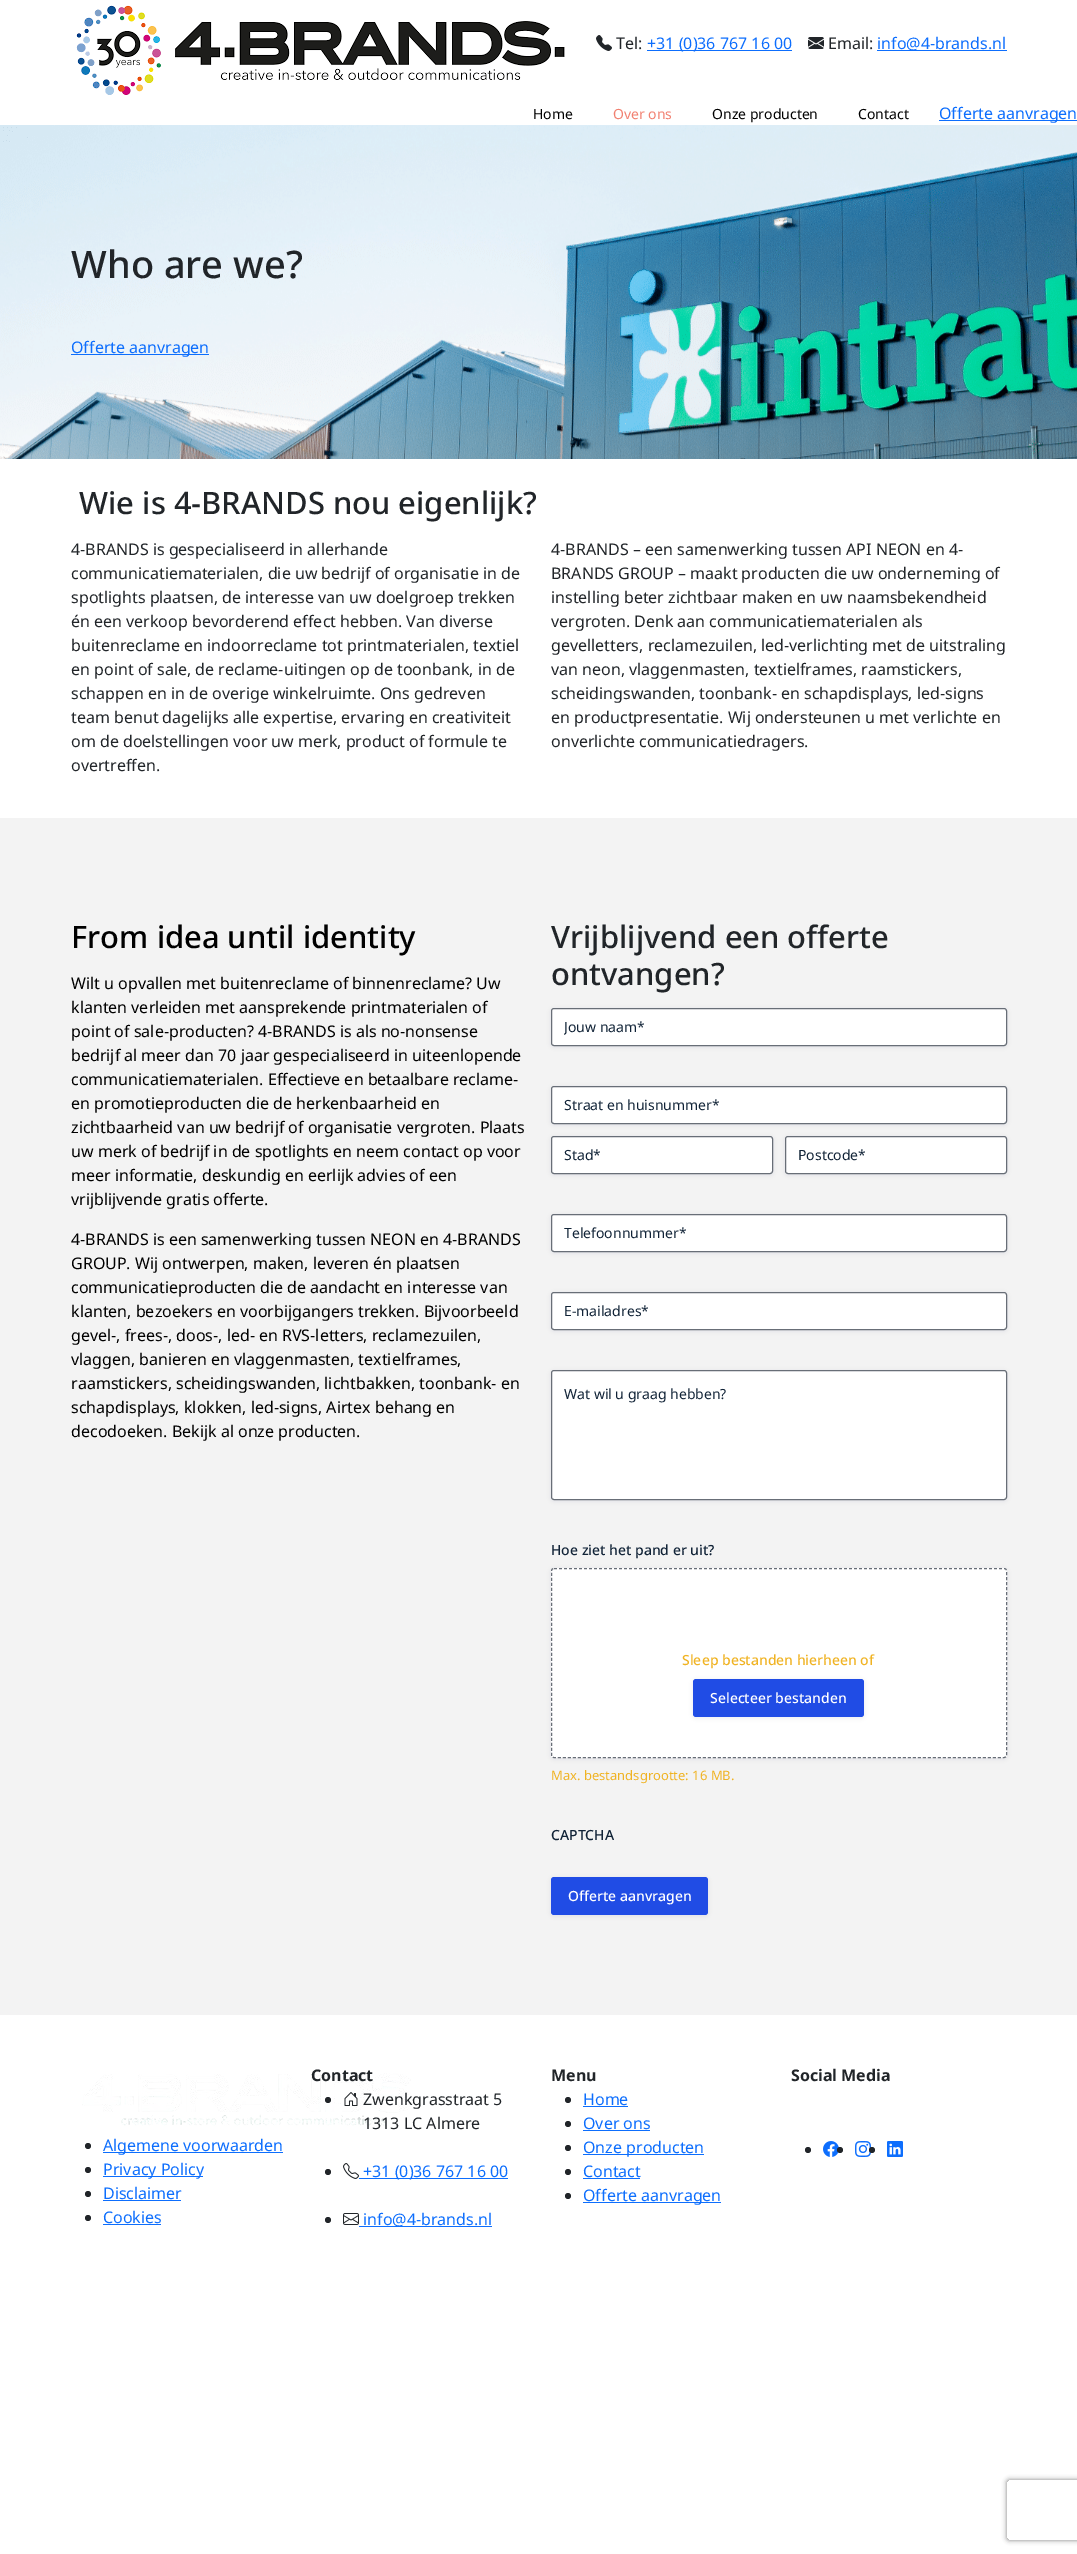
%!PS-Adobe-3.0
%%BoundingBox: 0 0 1077 2554
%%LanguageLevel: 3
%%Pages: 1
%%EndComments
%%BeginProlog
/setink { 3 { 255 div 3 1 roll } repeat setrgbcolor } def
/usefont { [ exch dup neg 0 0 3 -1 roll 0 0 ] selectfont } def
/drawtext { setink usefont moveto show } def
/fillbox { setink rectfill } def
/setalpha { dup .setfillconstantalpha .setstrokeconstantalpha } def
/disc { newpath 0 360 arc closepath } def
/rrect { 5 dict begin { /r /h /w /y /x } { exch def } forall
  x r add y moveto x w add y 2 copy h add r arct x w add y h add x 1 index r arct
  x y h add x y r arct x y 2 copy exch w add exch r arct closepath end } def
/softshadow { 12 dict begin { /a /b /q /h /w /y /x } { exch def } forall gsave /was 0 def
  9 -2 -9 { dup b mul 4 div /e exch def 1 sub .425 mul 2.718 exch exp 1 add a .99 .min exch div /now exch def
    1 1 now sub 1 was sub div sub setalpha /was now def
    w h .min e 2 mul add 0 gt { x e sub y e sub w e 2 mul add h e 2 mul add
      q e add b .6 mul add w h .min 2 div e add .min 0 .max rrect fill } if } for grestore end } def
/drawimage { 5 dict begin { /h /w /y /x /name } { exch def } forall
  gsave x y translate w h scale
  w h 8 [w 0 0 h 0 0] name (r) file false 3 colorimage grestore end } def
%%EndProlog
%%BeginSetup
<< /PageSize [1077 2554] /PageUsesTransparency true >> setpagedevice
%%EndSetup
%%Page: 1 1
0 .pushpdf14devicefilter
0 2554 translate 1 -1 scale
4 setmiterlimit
0 0 1077 2554 255 255 255 fillbox
(assets/img1.rgb) 76 5 489 90 drawimage
(assets/img2.rgb) 596 35 16 16 drawimage
(Tel:) 616 49 /NotoSans-Regular 16 33 37 41 drawtext
647 50 145 1 13 110 253 fillbox
(+31 \(0\)36 767 16 00) 647 49 /NotoSans-Regular 16 13 110 253 drawtext
(assets/img3.rgb) 808 37 16 12 drawimage
(Email:) 828 49 /NotoSans-Regular 16 33 37 41 drawtext
877 50 130 1 13 110 253 fillbox
(info@4-brands.nl) 877 49 /NotoSans-Regular 16 13 110 253 drawtext
(Home) 533 119 /NotoSans-Regular 14 0 0 0 drawtext
(Over ons) 613 119 /NotoSans-Regular 14 241 128 112 drawtext
(Onze producten) 712 119 /NotoSans-Regular 14 0 0 0 drawtext
(Contact) 858 119 /NotoSans-Regular 14 0 0 0 drawtext
939 120 138 1 13 110 253 fillbox
(Offerte aanvragen) 939 119 /NotoSans-Regular 16 13 110 253 drawtext
(assets/img4.rgb) 0 125 1077 334 drawimage
(Who are we?) 71 278 /NotoSans-Medium 38 33 37 41 drawtext
71 354 138 1 13 110 253 fillbox
(Offerte aanvragen) 71 353 /NotoSans-Regular 16 13 110 253 drawtext
(Wie is 4-BRANDS nou eigenlijk?) 79 514 /NotoSans-Medium 30.9 33 37 41 drawtext
(4-BRANDS is gespecialiseerd in allerhande) 71 555 /NotoSans-Regular 16 33 37 41 drawtext
(communicatiematerialen, die uw bedrijf of organisatie in de) 71 579 /NotoSans-Regular 16 33 37 41 drawtext
(spotlights plaatsen, de interesse van uw doelgroep trekken) 71 603 /NotoSans-Regular 16 33 37 41 drawtext
(én een verkoop bevorderend effect hebben. Van diverse) 71 627 /NotoSans-Regular 16 33 37 41 drawtext
(buitenreclame en indoorreclame tot printmaterialen, textiel) 71 651 /NotoSans-Regular 16 33 37 41 drawtext
(en point of sale, de reclame-uitingen op de toonbank, in de) 71 675 /NotoSans-Regular 16 33 37 41 drawtext
(schappen en in de overige winkelruimte. Ons gedreven) 71 699 /NotoSans-Regular 16 33 37 41 drawtext
(team benut dagelijks alle expertise, ervaring en creativiteit) 71 723 /NotoSans-Regular 16 33 37 41 drawtext
(om de doelstellingen voor uw merk, product of formule te) 71 747 /NotoSans-Regular 16 33 37 41 drawtext
(overtreffen.) 71 771 /NotoSans-Regular 16 33 37 41 drawtext
(4-BRANDS – een samenwerking tussen API NEON en 4-) 551 555 /NotoSans-Regular 16 33 37 41 drawtext
(BRANDS GROUP – maakt producten die uw onderneming of) 551 579 /NotoSans-Regular 16 33 37 41 drawtext
(instelling beter zichtbaar maken en uw naamsbekendheid) 551 603 /NotoSans-Regular 16 33 37 41 drawtext
(vergroten. Denk aan communicatiematerialen als) 551 627 /NotoSans-Regular 16 33 37 41 drawtext
(gevelletters, reclamezuilen, led-verlichting met de uitstraling) 551 651 /NotoSans-Regular 16 33 37 41 drawtext
(van neon, vlaggenmasten, textielframes, raamstickers,) 551 675 /NotoSans-Regular 16 33 37 41 drawtext
(scheidingswanden, toonbank- en schapdisplays, led-signs) 551 699 /NotoSans-Regular 16 33 37 41 drawtext
(en productpresentatie. Wij ondersteunen u met verlichte en) 551 723 /NotoSans-Regular 16 33 37 41 drawtext
(onverlichte communicatiedragers.) 551 747 /NotoSans-Regular 16 33 37 41 drawtext
0 818 1077 1197 243 243 243 fillbox
(From idea until identity) 71 948 /NotoSans-Medium 30.9 0 0 0 drawtext
(Wilt u opvallen met buitenreclame of binnenreclame? Uw) 71 989 /NotoSans-Regular 16 0 0 0 drawtext
(klanten verleiden met aansprekende printmaterialen of) 71 1013 /NotoSans-Regular 16 0 0 0 drawtext
(point of sale-producten? 4-BRANDS is als no-nonsense) 71 1037 /NotoSans-Regular 16 0 0 0 drawtext
(bedrijf al meer dan 70 jaar gespecialiseerd in uiteenlopende) 71 1061 /NotoSans-Regular 16 0 0 0 drawtext
(communicatiematerialen. Effectieve en betaalbare reclame-) 71 1085 /NotoSans-Regular 16 0 0 0 drawtext
(en promotieproducten die de herkenbaarheid en) 71 1109 /NotoSans-Regular 16 0 0 0 drawtext
(zichtbaarheid van uw bedrijf of organisatie vergroten. Plaats) 71 1133 /NotoSans-Regular 16 0 0 0 drawtext
(uw merk of bedrijf in de spotlights en neem contact op voor) 71 1157 /NotoSans-Regular 16 0 0 0 drawtext
(meer informatie, deskundig en eerlijk advies of een) 71 1181 /NotoSans-Regular 16 0 0 0 drawtext
(vrijblijvende gratis offerte.) 71 1205 /NotoSans-Regular 16 0 0 0 drawtext
(4-BRANDS is een samenwerking tussen NEON en 4-BRANDS) 71 1245 /NotoSans-Regular 16 0 0 0 drawtext
(GROUP. Wij ontwerpen, maken, leveren én plaatsen) 71 1269 /NotoSans-Regular 16 0 0 0 drawtext
(communicatieproducten die de aandacht en interesse van) 71 1293 /NotoSans-Regular 16 0 0 0 drawtext
(klanten, bezoekers en voorbijgangers trekken. Bijvoorbeeld) 71 1317 /NotoSans-Regular 16 0 0 0 drawtext
(gevel-, frees-, doos-, led- en RVS-letters, reclamezuilen,) 71 1341 /NotoSans-Regular 16 0 0 0 drawtext
(vlaggen, banieren en vlaggenmasten, textielframes,) 71 1365 /NotoSans-Regular 16 0 0 0 drawtext
(raamstickers, scheidingswanden, lichtbakken, toonbank- en) 71 1389 /NotoSans-Regular 16 0 0 0 drawtext
(schapdisplays, klokken, led-signs, Airtex behang en) 71 1413 /NotoSans-Regular 16 0 0 0 drawtext
(decodoeken. Bekijk al onze producten.) 71 1437 /NotoSans-Regular 16 0 0 0 drawtext
(Vrijblijvend een offerte) 551 948 /NotoSans-Medium 30.9 33 37 41 drawtext
(ontvangen?) 551 985 /NotoSans-Medium 30.9 33 37 41 drawtext
18 25 97 setink
551 1009 456 38 3 2 0.08 softshadow
255 255 255 setink
551.5 1008.5 455 37 2.5 rrect gsave fill grestore
104 110 119 setink
stroke
gsave
564 1017 430 19 rectclip
(Jouw naam*) 564 1032 /NotoSans-Regular 14 17 35 55 drawtext
grestore
18 25 97 setink
551 1087 456 38 3 2 0.08 softshadow
255 255 255 setink
551.5 1086.5 455 37 2.5 rrect gsave fill grestore
104 110 119 setink
stroke
(Straat en huisnummer*) 564 1110 /NotoSans-Regular 14 17 35 55 drawtext
18 25 97 setink
551 1137 222 38 3 2 0.08 softshadow
255 255 255 setink
551.5 1136.5 221 37 2.5 rrect gsave fill grestore
104 110 119 setink
stroke
(Stad*) 564 1160 /NotoSans-Regular 14 17 35 55 drawtext
18 25 97 setink
785 1137 222 38 3 2 0.08 softshadow
255 255 255 setink
785.5 1136.5 221 37 2.5 rrect gsave fill grestore
104 110 119 setink
stroke
(Postcode*) 798 1160 /NotoSans-Regular 14 17 35 55 drawtext
18 25 97 setink
551 1215 456 38 3 2 0.08 softshadow
255 255 255 setink
551.5 1214.5 455 37 2.5 rrect gsave fill grestore
104 110 119 setink
stroke
(Telefoonnummer*) 564 1238 /NotoSans-Regular 14 17 35 55 drawtext
18 25 97 setink
551 1293 456 38 3 2 0.08 softshadow
255 255 255 setink
551.5 1292.5 455 37 2.5 rrect gsave fill grestore
104 110 119 setink
stroke
(E-mailadres*) 564 1316 /NotoSans-Regular 14 17 35 55 drawtext
18 25 97 setink
551 1371 456 130 3 2 0.08 softshadow
255 255 255 setink
551.5 1370.5 455 129 2.5 rrect gsave fill grestore
104 110 119 setink
stroke
(Wat wil u graag hebben?) 564 1399 /NotoSans-Regular 14 17 35 55 drawtext
(Hoe ziet het pand er uit?) 551 1555 /NotoSans-Medium 14 17 35 55 drawtext
18 25 97 setink
551 1569 456 190 3 2 0.08 softshadow
255 255 255 setink
551 1568 456 190 3 rrect fill
104 110 119 setink
[3 2] 0 setdash
554 1568.5 moveto 1004 1568.5 lineto 1005.5 1568.5 1006.5 1569.5 1006.5 1571 curveto 1006.5 1755 lineto 1006.5 1756.5 1005.5 1757.5 1004 1757.5 curveto 554 1757.5 lineto 552.5 1757.5 551.5 1756.5 551.5 1755 curveto 551.5 1571 lineto 551.5 1569.5 552.5 1568.5 554 1568.5 curveto closepath stroke
(Sleep bestanden hierheen of) 682 1665 /NotoSans-Medium 14 240 179 35 drawtext
18 25 97 setink
693 1680 171 38 3 2 0.08 softshadow
32 76 229 setink
693 1679 171 38 3 rrect fill
(Selecteer bestanden) 710 1703 /NotoSans-Medium 14 255 255 255 drawtext
(Max. bestandsgrootte: 16 MB.) 551 1780 /NotoSans-Regular 13 240 179 35 drawtext
(CAPTCHA) 551 1840 /NotoSans-Medium 14 17 35 55 drawtext
18 25 97 setink
551 1878 157 38 3 2 0.08 softshadow
32 76 229 setink
551 1877 157 38 3 rrect fill
(Offerte aanvragen) 568 1901 /NotoSans-Medium 14 255 255 255 drawtext
(assets/img5.rgb) 82 2073 342 53 drawimage
33 37 41 setink
88 2146 3 disc fill
103 2152 180 1 13 110 253 fillbox
(Algemene voorwaarden) 103 2151 /NotoSans-Regular 16 13 110 253 drawtext
33 37 41 setink
88 2170 3 disc fill
103 2176 100 1 13 110 253 fillbox
(Privacy Policy) 103 2175 /NotoSans-Regular 16 13 110 253 drawtext
33 37 41 setink
88 2194 3 disc fill
(Disclaimer) 103 2199 /NotoSans-Regular 16 13 110 253 drawtext
103 2200 78 1 13 110 253 fillbox
33 37 41 setink
88 2218 3 disc fill
(Cookies) 103 2223 /NotoSans-Regular 16 13 110 253 drawtext
103 2224 58 1 13 110 253 fillbox
(Contact) 311 2081 /NotoSans-Bold 16 33 37 41 drawtext
328 2100 3 disc fill
(assets/img6.rgb) 344 2092 14 14 drawimage
(Zwenkgrasstraat 5) 363 2105 /NotoSans-Regular 16 33 37 41 drawtext
(1313 LC Almere) 363 2129 /NotoSans-Regular 16 33 37 41 drawtext
328 2172 3 disc fill
(assets/img7.rgb) 343 2163 16 16 drawimage
359 2178 149 1 13 110 253 fillbox
(+31 \(0\)36 767 16 00) 363 2177 /NotoSans-Regular 16 13 110 253 drawtext
33 37 41 setink
328 2220 3 disc fill
(assets/img8.rgb) 343 2213 16 12 drawimage
359 2226 133 1 13 110 253 fillbox
(info@4-brands.nl) 363 2225 /NotoSans-Regular 16 13 110 253 drawtext
(Menu) 551 2081 /NotoSans-Bold 16 33 37 41 drawtext
568 2100 3 disc fill
(Home) 583 2105 /NotoSans-Regular 16 13 110 253 drawtext
583 2106 45 1 13 110 253 fillbox
33 37 41 setink
568 2124 3 disc fill
(Over ons) 583 2129 /NotoSans-Regular 16 13 110 253 drawtext
583 2130 67 1 13 110 253 fillbox
33 37 41 setink
568 2148 3 disc fill
583 2154 121 1 13 110 253 fillbox
(Onze producten) 583 2153 /NotoSans-Regular 16 13 110 253 drawtext
33 37 41 setink
568 2172 3 disc fill
(Contact) 583 2177 /NotoSans-Regular 16 13 110 253 drawtext
583 2178 57 1 13 110 253 fillbox
33 37 41 setink
568 2196 3 disc fill
583 2202 138 1 13 110 253 fillbox
(Offerte aanvragen) 583 2201 /NotoSans-Regular 16 13 110 253 drawtext
(Social Media) 791 2081 /NotoSans-Bold 16 33 37 41 drawtext
808 2150 3 disc fill
(assets/img9.rgb) 823 2141 16 16 drawimage
840 2150 3 disc fill
(assets/img10.rgb) 855 2141 16 16 drawimage
872 2150 3 disc fill
(assets/img11.rgb) 887 2141 16 16 drawimage
gsave
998 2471 moveto 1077 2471 lineto 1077 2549 lineto 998 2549 lineto closepath 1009 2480 moveto 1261 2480 lineto 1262 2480 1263 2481 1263 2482 curveto 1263 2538 lineto 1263 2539 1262 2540 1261 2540 curveto 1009 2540 lineto 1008 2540 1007 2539 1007 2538 curveto 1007 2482 lineto 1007 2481 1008 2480 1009 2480 curveto closepath eoclip newpath
128 128 128 setink
1007 2480 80 60 2 2.5 1 softshadow
grestore
.poppdf14devicefilter showpage
%%EOF
